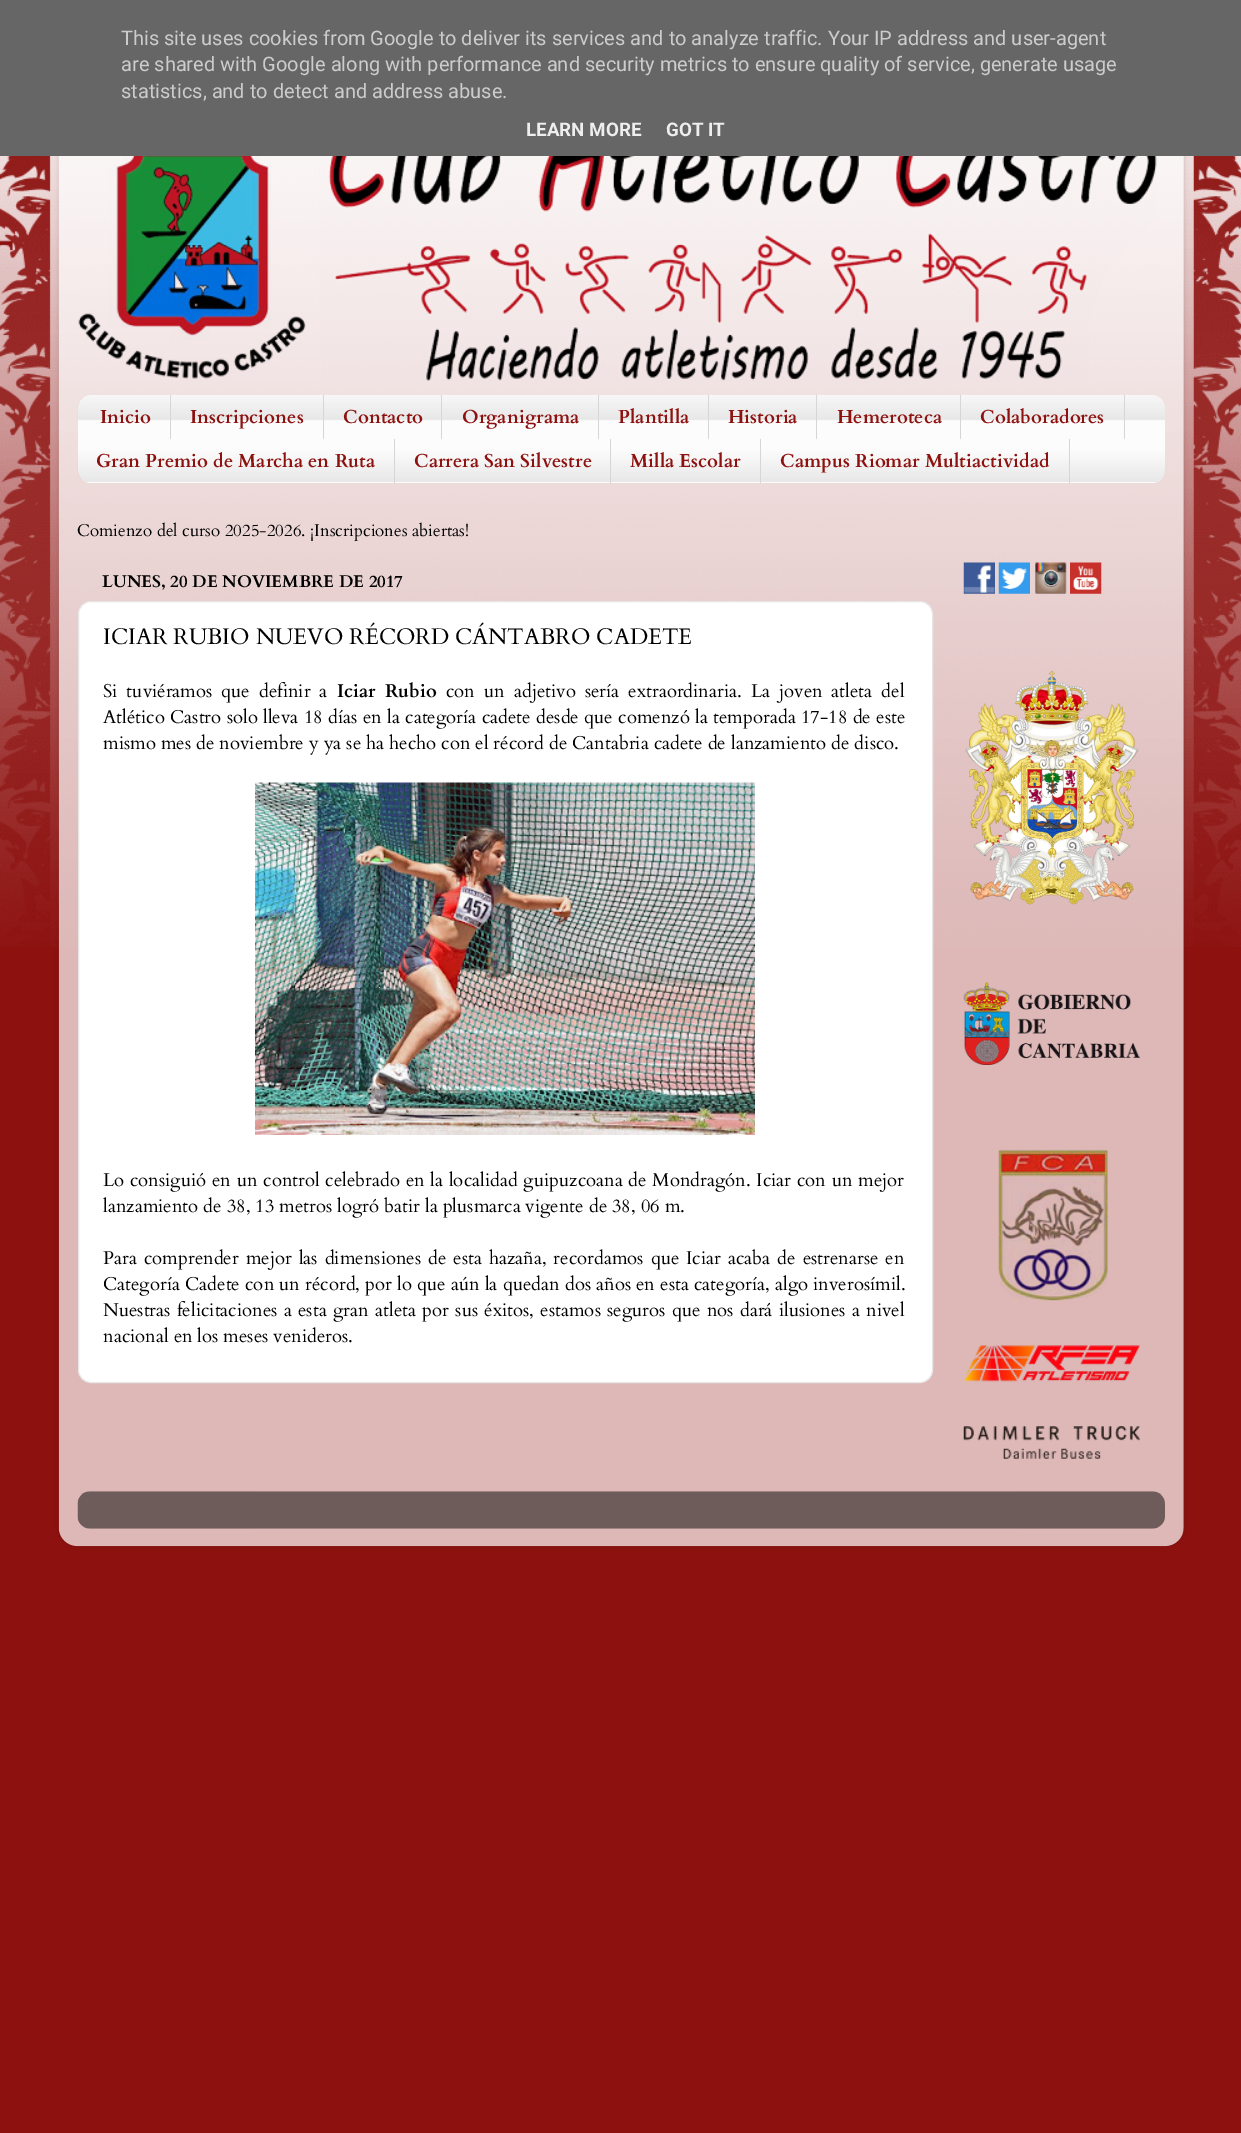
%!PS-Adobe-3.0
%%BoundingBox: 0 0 1241 2133
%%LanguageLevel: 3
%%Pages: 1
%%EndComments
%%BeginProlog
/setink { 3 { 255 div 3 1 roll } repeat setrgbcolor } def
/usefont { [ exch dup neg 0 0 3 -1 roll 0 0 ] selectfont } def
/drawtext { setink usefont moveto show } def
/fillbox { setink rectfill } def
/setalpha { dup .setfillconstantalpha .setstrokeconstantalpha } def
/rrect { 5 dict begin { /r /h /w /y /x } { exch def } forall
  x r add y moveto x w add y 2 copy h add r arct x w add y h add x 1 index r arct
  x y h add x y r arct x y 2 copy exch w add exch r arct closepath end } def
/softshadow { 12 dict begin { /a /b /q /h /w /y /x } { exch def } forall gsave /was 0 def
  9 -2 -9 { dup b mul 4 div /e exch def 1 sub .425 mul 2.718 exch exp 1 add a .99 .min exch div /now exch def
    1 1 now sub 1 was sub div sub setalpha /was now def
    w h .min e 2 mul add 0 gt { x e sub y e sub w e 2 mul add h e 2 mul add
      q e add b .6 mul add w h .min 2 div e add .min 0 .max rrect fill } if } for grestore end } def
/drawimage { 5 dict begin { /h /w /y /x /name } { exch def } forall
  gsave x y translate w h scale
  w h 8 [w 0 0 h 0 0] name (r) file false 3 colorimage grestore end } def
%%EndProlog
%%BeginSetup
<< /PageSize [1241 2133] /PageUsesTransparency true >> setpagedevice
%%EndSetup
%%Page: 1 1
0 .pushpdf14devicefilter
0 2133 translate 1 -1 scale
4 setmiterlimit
0 0 1241 2133 140 17 15 fillbox
(assets/img1.rgb) 0 156 1241 791 drawimage
gsave
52 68 moveto 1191 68 lineto 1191 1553 lineto 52 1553 lineto closepath 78 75 moveto 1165 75 lineto 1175.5 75 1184 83.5 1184 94 curveto 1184 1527 lineto 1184 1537.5 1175.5 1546 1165 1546 curveto 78 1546 lineto 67.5 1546 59 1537.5 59 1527 curveto 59 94 lineto 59 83.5 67.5 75 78 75 curveto closepath eoclip newpath
0 0 0 setink
59 75 1125 1471 19 2 0.15 softshadow
grestore
0 0 1241 156 102 102 102 fillbox
(This site uses cookies from Google to deliver its services and to analyze traffic. Your IP address and user-agent) 121 45 /Roboto-Regular 20 204 204 204 drawtext
(are shared with Google along with performance and security metrics to ensure quality of service, generate usage) 121 71 /Roboto-Regular 20 204 204 204 drawtext
(statistics, and to detect and address abuse.) 121 98 /Roboto-Regular 20 204 204 204 drawtext
(LEARN MORE) 526 136 /Roboto-Bold 18.75 238 238 238 drawtext
(GOT IT) 666 136 /Roboto-Bold 18.75 238 238 238 drawtext
(assets/img2.rgb) 58 156 1126 1391 drawimage
(assets/img3.rgb) 78 156 1079 226 drawimage
252 252 252 setink
78 395 1087 88 13 rrect fill
(assets/img4.rgb) 77 395 1088 87 drawimage
170 395 1 44 214 214 214 fillbox
(Inicio) 100 423 /Cardo-Bold 18.75 140 17 15 drawtext
323 395 1 44 214 214 214 fillbox
(Inscripciones) 190 423 /Cardo-Bold 18.75 140 17 15 drawtext
441 395 1 44 214 214 214 fillbox
(Contacto) 343 423 /Cardo-Bold 18.75 140 17 15 drawtext
598 395 1 44 214 214 214 fillbox
(Organigrama) 462 423 /Cardo-Bold 18.75 140 17 15 drawtext
708 395 1 44 214 214 214 fillbox
(Plantilla) 618 423 /Cardo-Bold 18.75 140 17 15 drawtext
816 395 1 44 214 214 214 fillbox
(Historia) 728 423 /Cardo-Bold 18.75 140 17 15 drawtext
960 395 1 44 214 214 214 fillbox
(Hemeroteca) 837 423 /Cardo-Bold 18.75 140 17 15 drawtext
1124 395 1 44 214 214 214 fillbox
(Colaboradores) 980 423 /Cardo-Bold 18.75 140 17 15 drawtext
394 439 1 44 214 214 214 fillbox
(Gran Premio de Marcha en Ruta) 96 467 /Cardo-Bold 18.75 140 17 15 drawtext
610 439 1 44 214 214 214 fillbox
(Carrera San Silvestre) 414 467 /Cardo-Bold 18.75 140 17 15 drawtext
760 439 1 44 214 214 214 fillbox
(Milla Escolar) 630 467 /Cardo-Bold 18.75 140 17 15 drawtext
1069 439 1 44 214 214 214 fillbox
(Campus Riomar Multiactividad) 780 467 /Cardo-Bold 18.75 140 17 15 drawtext
(Comienzo del curso 2025-2026. ¡Inscripciones abiertas!) 77 536 /Cardo-Regular 16.9 0 0 0 drawtext
(LUNES, 20 DE NOVIEMBRE DE 2017) 102 587 /Cardo-Bold 16.9 0 0 0 drawtext
255 255 255 setink
78.5 601.5 854 781 12.5 rrect gsave fill grestore
230 230 230 setink
stroke
(ICIAR RUBIO NUEVO RÉCORD CÁNTABRO CADETE) 103 644 /Cardo-Regular 22.5 0 0 0 drawtext
/Cardo-Regular 18.55 usefont
103 697 moveto 4 0 32 (Si tuviéramos que definir a) widthshow
/Cardo-Bold 18.55 usefont
337 697 moveto 4 0 32 (Iciar Rubio) widthshow
/Cardo-Regular 18.55 usefont
446 697 moveto 4 0 32 (con un adjetivo sería extraordinaria. La joven atleta del) widthshow
103 723 moveto 0.4 0 32 (Atlético Castro solo lleva 18 días en la categoría cadete desde que comenzó la temporada 17-18 de este) widthshow
(mismo mes de noviembre y ya se ha hecho con el récord de Cantabria cadete de lanzamiento de disco.) 103 749 /Cardo-Regular 18.55 0 0 0 drawtext
(assets/img5.rgb) 255 782 500 353 drawimage
103 1186 moveto 0.75 0 32 (Lo consiguió en un control celebrado en la localidad guipuzcoana de Mondragón. Iciar con un mejor) widthshow
(lanzamiento de 38, 13 metros logró batir la plusmarca vigente de 38, 06 m.) 103 1212 /Cardo-Regular 18.55 0 0 0 drawtext
103 1264 moveto 2 0 32 (Para comprender mejor las dimensiones de esta hazaña, recordamos que Iciar acaba de estrenarse en) widthshow
103 1290 moveto 0.2 0 32 (Categoría Cadete con un récord, por lo que aún la quedan dos años en esta categoría, algo inverosímil.) widthshow
103 1316 moveto 1.4 0 32 (Nuestras felicitaciones a esta gran atleta por sus éxitos, estamos seguros que nos dará ilusiones a nivel) widthshow
(nacional en los meses venideros.) 103 1342 /Cardo-Regular 18.55 0 0 0 drawtext
(assets/img6.rgb) 963 562 32 32 drawimage
(assets/img7.rgb) 998 562 32 32 drawimage
(assets/img8.rgb) 1035 562 32 32 drawimage
(assets/img9.rgb) 1070 562 32 32 drawimage
(assets/img10.rgb) 965 670 174 235 drawimage
(assets/img11.rgb) 963 982 177 83 drawimage
(assets/img12.rgb) 998 1149 110 152 drawimage
(assets/img13.rgb) 963 1345 177 37 drawimage
(assets/img14.rgb) 963 1426 177 33 drawimage
(assets/img15.rgb) 77 1491 1088 38 drawimage
.poppdf14devicefilter showpage
%%EOF
